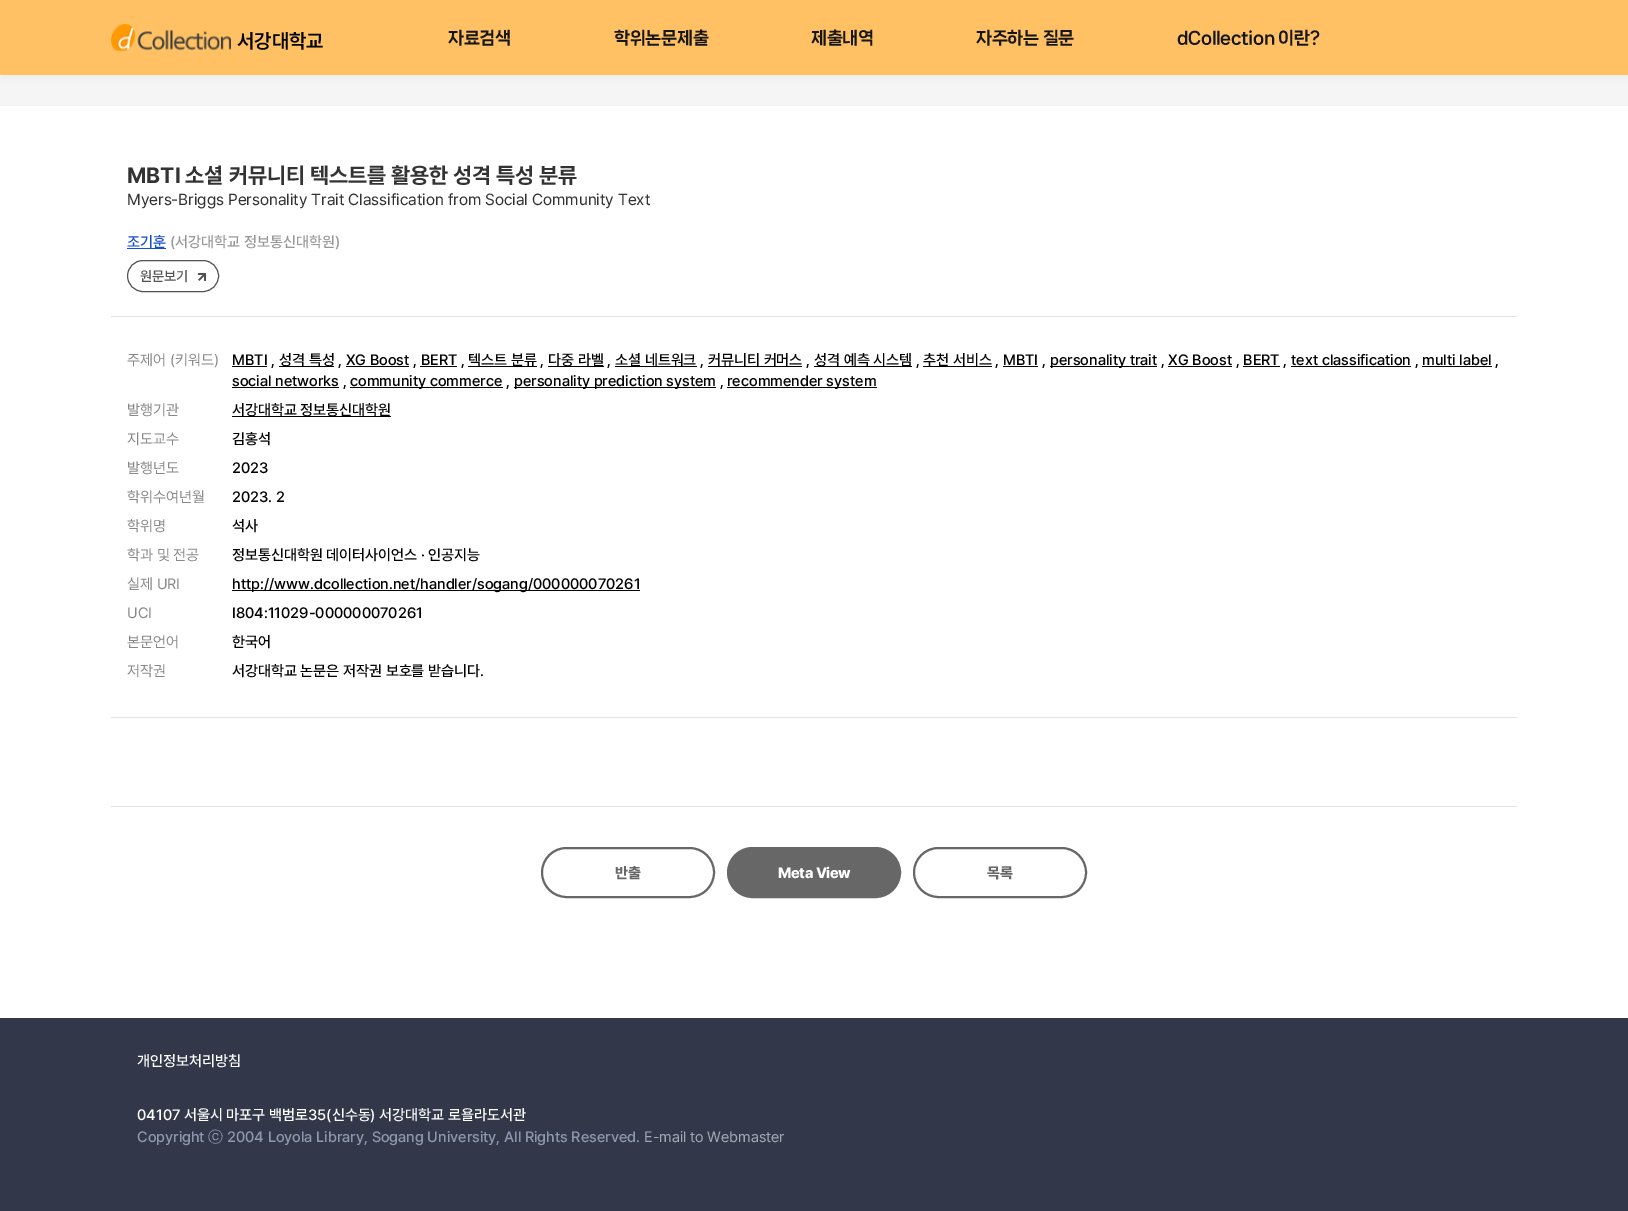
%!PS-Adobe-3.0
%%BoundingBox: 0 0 1628 1211
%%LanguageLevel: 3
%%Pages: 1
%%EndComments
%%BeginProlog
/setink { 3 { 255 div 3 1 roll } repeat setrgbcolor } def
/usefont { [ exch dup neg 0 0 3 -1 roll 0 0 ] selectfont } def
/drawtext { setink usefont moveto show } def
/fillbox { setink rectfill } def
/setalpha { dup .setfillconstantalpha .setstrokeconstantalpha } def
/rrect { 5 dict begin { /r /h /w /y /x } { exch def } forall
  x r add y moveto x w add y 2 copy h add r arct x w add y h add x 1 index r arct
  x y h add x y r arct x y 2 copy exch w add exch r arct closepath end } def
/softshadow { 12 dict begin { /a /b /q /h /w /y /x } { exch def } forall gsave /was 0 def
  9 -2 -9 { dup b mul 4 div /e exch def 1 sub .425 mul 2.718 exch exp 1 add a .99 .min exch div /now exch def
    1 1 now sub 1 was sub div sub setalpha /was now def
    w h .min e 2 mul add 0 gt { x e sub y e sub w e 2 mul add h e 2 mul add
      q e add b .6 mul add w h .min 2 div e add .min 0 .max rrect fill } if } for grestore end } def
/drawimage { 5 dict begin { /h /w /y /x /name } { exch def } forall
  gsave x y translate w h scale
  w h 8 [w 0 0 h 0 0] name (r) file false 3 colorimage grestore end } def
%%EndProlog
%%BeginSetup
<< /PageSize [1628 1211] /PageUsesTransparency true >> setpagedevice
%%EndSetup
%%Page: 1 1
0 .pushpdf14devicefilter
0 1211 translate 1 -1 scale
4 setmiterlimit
0 0 1628 1211 255 255 255 fillbox
0 75 1628 31 245 245 245 fillbox
0 0 0 setink
0 4 1628 75 0 4 0.04 softshadow
0 0 1628 75 255 193 99 fillbox
(assets/img1.rgb) 111 24 120 27 drawimage
(서강대학교) 237 48 /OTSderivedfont-SemiBold 20 0 0 0 drawtext
/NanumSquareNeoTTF-ExtraBold 17 usefont
22 22 22 setink
448 43 moveto -0.4 0 (자료검색) ashow
614 43 moveto -0.4 0 (학위논문제출) ashow
811 43 moveto -0.4 0 (제출내역) ashow
976 43 moveto -0.4 0 (자주하는 질문) ashow
1177 43 moveto -0.4 0 (dCollection 이란?) ashow
111 316 1406 1 227 227 227 fillbox
(MBTI 소셜 커뮤니티 텍스트를 활용한 성격 특성 분류) 127 183 /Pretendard-Bold 22 51 51 51 drawtext
(Myers-Briggs Personality Trait Classification from Social Community Text) 127 205 /OTSderivedfont-Regular 16 51 51 51 drawtext
127 248 39 1 22 75 211 fillbox
(조기훈) 127 247 /OTSderivedfont-Medium 15 22 75 211 drawtext
(\(서강대학교 정보통신대학원\)) 170 247 /OTSderivedfont-Medium 15 151 151 151 drawtext
(assets/img2.rgb) 198 273 8 8 drawimage
82 82 82 setink
127.5 260.5 91 31 15.5 rrect stroke
(원문보기) 140 281 /OTSderivedfont-Medium 14 82 82 82 drawtext
111 717 1406 1 227 227 227 fillbox
(주제어 \(키워드\)) 127 365 /OTSderivedfont-Regular 15 136 136 136 drawtext
232 366 35 1 0 0 0 fillbox
(MBTI ,) 232 365 /OTSderivedfont-Medium 15 0 0 0 drawtext
279 366 55 1 0 0 0 fillbox
(성격 특성 , XG Boost , BERT ,) 279 365 /OTSderivedfont-Medium 15 0 0 0 drawtext
468 366 69 1 0 0 0 fillbox
(텍스트 분류 ,) 468 365 /OTSderivedfont-Medium 15 0 0 0 drawtext
548 366 56 1 0 0 0 fillbox
(다중 라벨 ,) 548 365 /OTSderivedfont-Medium 15 0 0 0 drawtext
615 366 82 1 0 0 0 fillbox
(소셜 네트워크 ,) 615 365 /OTSderivedfont-Medium 15 0 0 0 drawtext
708 366 94 1 0 0 0 fillbox
(커뮤니티 커머스 ,) 708 365 /OTSderivedfont-Medium 15 0 0 0 drawtext
814 366 98 1 0 0 0 fillbox
(성격 예측 시스템 ,) 814 365 /OTSderivedfont-Medium 15 0 0 0 drawtext
923 366 69 1 0 0 0 fillbox
(추천 서비스 , MBTI ,) 923 365 /OTSderivedfont-Medium 15 0 0 0 drawtext
1050 366 107 1 0 0 0 fillbox
(personality trait , XG Boost , BERT , text classification , multi label ,) 1050 365 /OTSderivedfont-Medium 15 0 0 0 drawtext
346 366 63 1 0 0 0 fillbox
420 366 37 1 0 0 0 fillbox
1003 366 35 1 0 0 0 fillbox
1168 366 64 1 0 0 0 fillbox
1243 366 37 1 0 0 0 fillbox
1291 366 120 1 0 0 0 fillbox
1422 366 70 1 0 0 0 fillbox
232 387 107 1 0 0 0 fillbox
(social networks ,) 232 386 /OTSderivedfont-Medium 15 0 0 0 drawtext
350 387 153 1 0 0 0 fillbox
(community commerce ,) 350 386 /OTSderivedfont-Medium 15 0 0 0 drawtext
514 387 202 1 0 0 0 fillbox
(personality prediction system ,) 514 386 /OTSderivedfont-Medium 15 0 0 0 drawtext
727 387 150 1 0 0 0 fillbox
(recommender system) 727 386 /OTSderivedfont-Medium 15 0 0 0 drawtext
(발행기관) 127 415 /OTSderivedfont-Regular 15 136 136 136 drawtext
232 416 159 1 0 0 0 fillbox
(서강대학교 정보통신대학원) 232 415 /OTSderivedfont-Medium 15 0 0 0 drawtext
(지도교수) 127 444 /OTSderivedfont-Regular 15 136 136 136 drawtext
(김홍석) 232 444 /OTSderivedfont-Medium 15 0 0 0 drawtext
(발행년도) 127 473 /OTSderivedfont-Regular 15 136 136 136 drawtext
(2023) 232 473 /OTSderivedfont-Medium 15 0 0 0 drawtext
(학위수여년월) 127 502 /OTSderivedfont-Regular 15 136 136 136 drawtext
(2023. 2) 232 502 /OTSderivedfont-Medium 15 0 0 0 drawtext
(학위명) 127 531 /OTSderivedfont-Regular 15 136 136 136 drawtext
(석사) 232 531 /OTSderivedfont-Medium 15 0 0 0 drawtext
(학과 및 전공) 127 560 /OTSderivedfont-Regular 15 136 136 136 drawtext
(정보통신대학원 데이터사이언스 · 인공지능) 232 560 /OTSderivedfont-Medium 15 0 0 0 drawtext
(실제 URI) 127 589 /OTSderivedfont-Regular 15 136 136 136 drawtext
232 590 408 1 0 0 0 fillbox
(http://www.dcollection.net/handler/sogang/000000070261) 232 589 /OTSderivedfont-Medium 15 0 0 0 drawtext
(UCI) 127 618 /OTSderivedfont-Regular 15 136 136 136 drawtext
(I804:11029-000000070261) 232 618 /OTSderivedfont-Medium 15 0 0 0 drawtext
(본문언어) 127 647 /OTSderivedfont-Regular 15 136 136 136 drawtext
(한국어) 232 647 /OTSderivedfont-Medium 15 0 0 0 drawtext
(저작권) 127 676 /OTSderivedfont-Regular 15 136 136 136 drawtext
(서강대학교 논문은 저작권 보호를 받습니다.) 232 676 /OTSderivedfont-Medium 15 0 0 0 drawtext
111 806 1406 1 227 227 227 fillbox
103 103 103 setink
2 setlinewidth
542 848 172 49 24.5 rrect stroke
/Pretendard-ExtraBold 15 usefont
615 878 moveto -0.4 0 (반출) ashow
728 848 172 49 24.5 rrect gsave fill grestore
stroke
255 255 255 setink
778 878 moveto -0.4 0 (Meta View) ashow
103 103 103 setink
914 848 172 49 24.5 rrect stroke
987 878 moveto -0.4 0 (목록) ashow
0 1018 1628 193 50 56 74 fillbox
(개인정보처리방침) 137 1066 /OTSderivedfont-Medium 15 255 255 255 drawtext
(04107 서울시 마포구 백범로35\(신수동\) 서강대학교 로욜라도서관) 137 1120 /OTSderivedfont-Medium 15 255 255 255 drawtext
(Copyright) 137 1142 /OTSderivedfont-Medium 15 142 150 174 drawtext
(ⓒ) 208 1142 /WenQuanYiZenHei-Medium 15 142 150 174 drawtext
(2004 Loyola Library, Sogang University, All Rights Reserved.) 227 1142 /OTSderivedfont-Medium 15 142 150 174 drawtext
(E-mail to Webmaster) 644 1142 /OTSderivedfont-Regular 15 162 167 179 drawtext
.poppdf14devicefilter showpage
%%EOF
